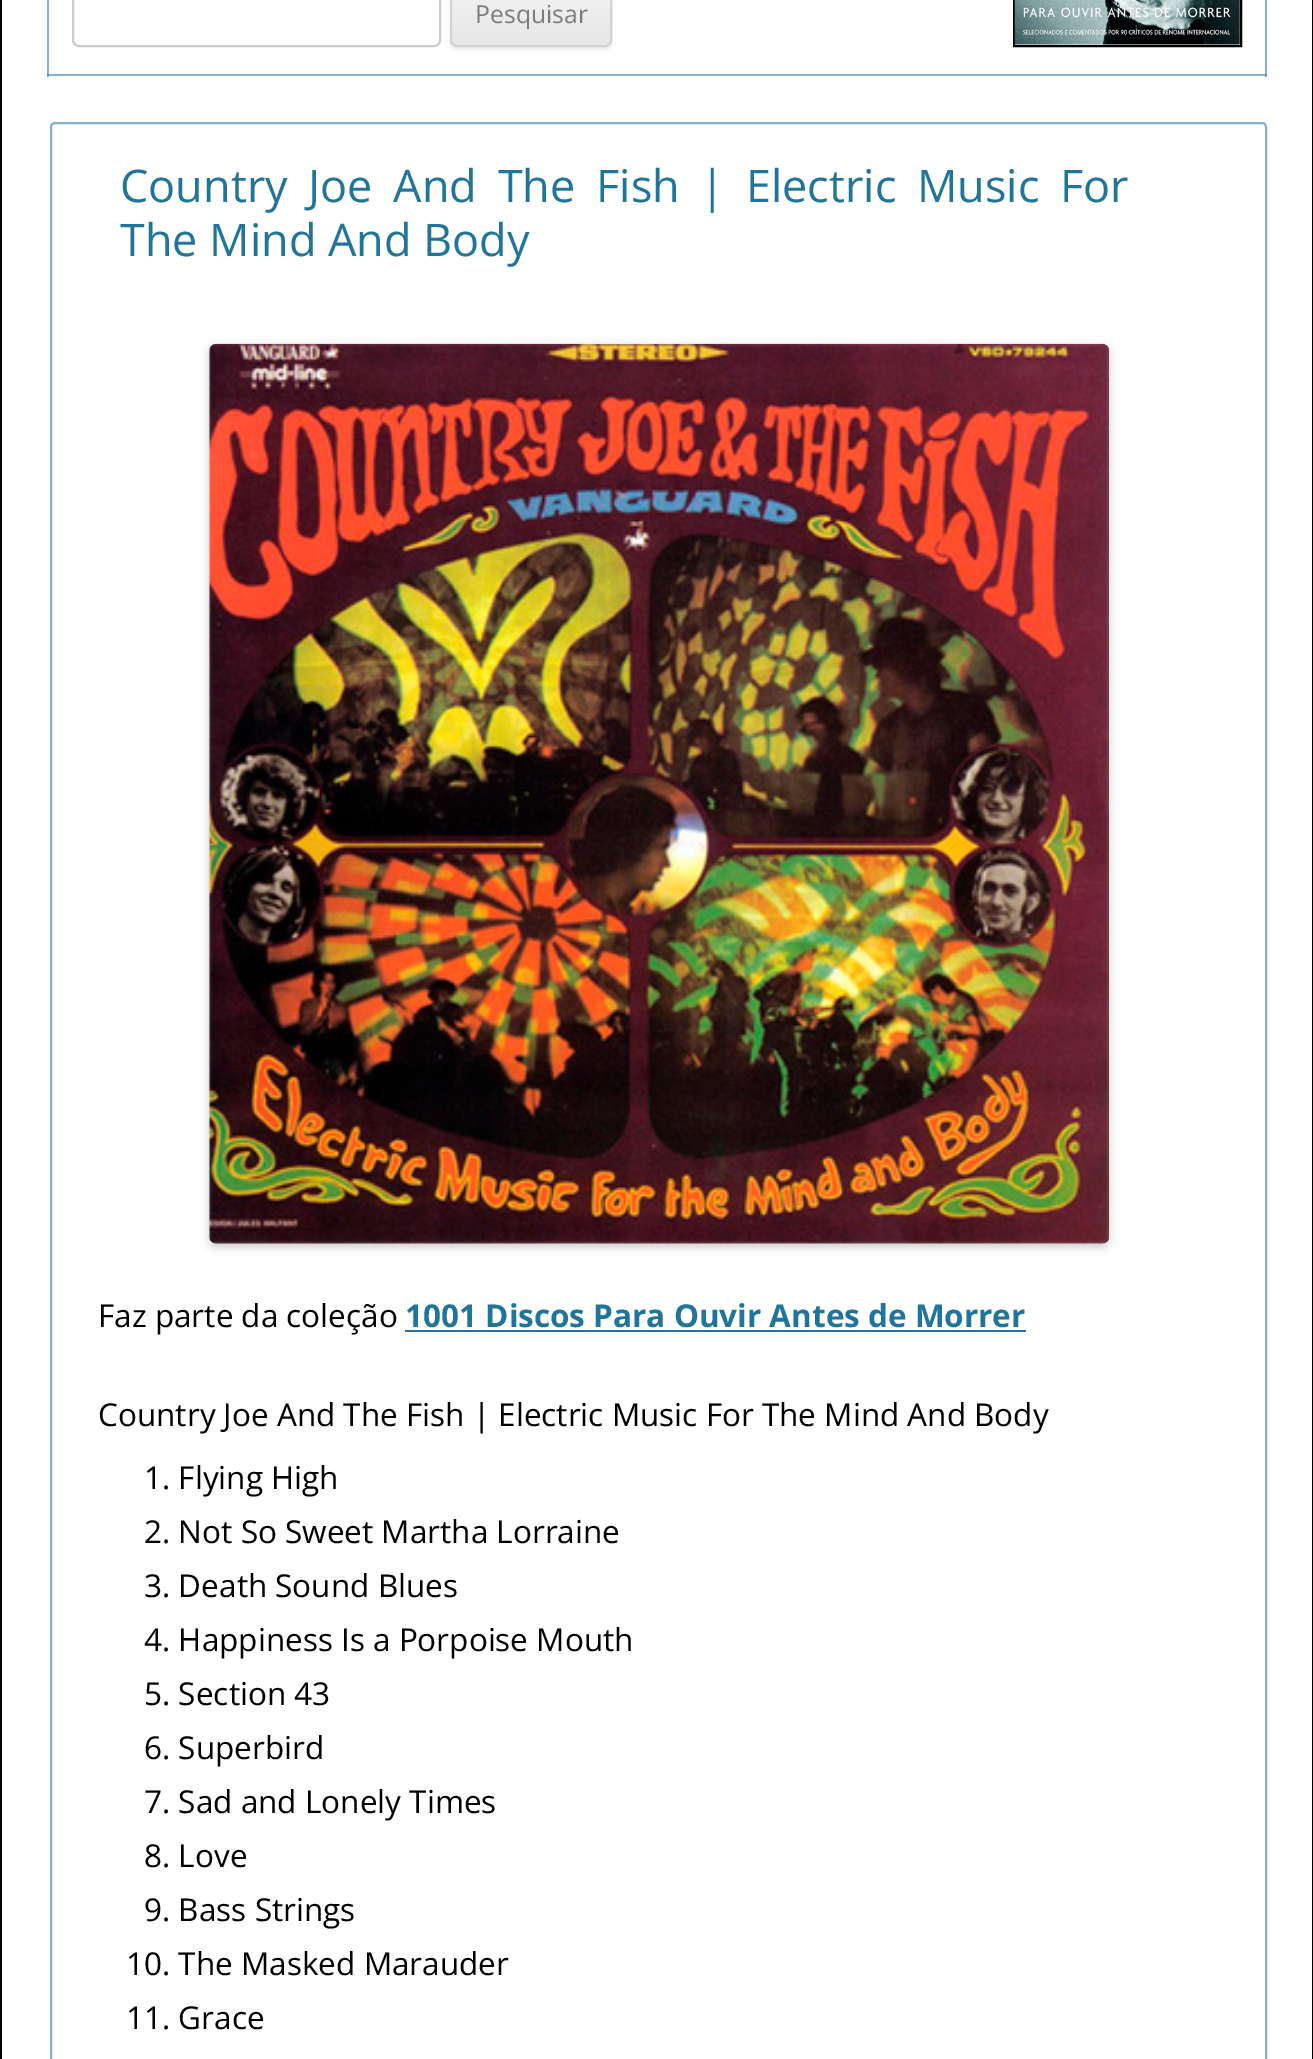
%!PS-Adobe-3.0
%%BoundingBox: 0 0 1313 2059
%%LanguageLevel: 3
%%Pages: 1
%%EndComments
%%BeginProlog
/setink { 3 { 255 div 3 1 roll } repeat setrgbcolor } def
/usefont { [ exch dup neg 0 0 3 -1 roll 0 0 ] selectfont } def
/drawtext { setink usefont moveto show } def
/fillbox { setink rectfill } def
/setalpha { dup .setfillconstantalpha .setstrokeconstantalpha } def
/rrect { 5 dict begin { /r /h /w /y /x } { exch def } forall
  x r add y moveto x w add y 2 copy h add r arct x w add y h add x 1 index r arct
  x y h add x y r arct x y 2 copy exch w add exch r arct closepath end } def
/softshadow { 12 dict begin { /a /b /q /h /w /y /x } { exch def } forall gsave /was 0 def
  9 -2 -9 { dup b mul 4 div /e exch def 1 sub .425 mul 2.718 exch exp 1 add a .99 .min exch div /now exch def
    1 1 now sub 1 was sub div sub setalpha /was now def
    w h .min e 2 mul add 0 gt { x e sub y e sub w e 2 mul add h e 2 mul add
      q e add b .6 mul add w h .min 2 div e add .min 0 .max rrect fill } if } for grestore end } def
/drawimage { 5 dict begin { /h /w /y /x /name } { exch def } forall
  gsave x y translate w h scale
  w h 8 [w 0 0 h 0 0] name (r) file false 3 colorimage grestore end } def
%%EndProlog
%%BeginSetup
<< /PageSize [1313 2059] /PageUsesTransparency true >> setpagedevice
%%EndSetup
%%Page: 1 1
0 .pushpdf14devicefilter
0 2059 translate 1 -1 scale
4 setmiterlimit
0 0 1313 2059 255 255 255 fillbox
47 0 2 77 135 176 213 fillbox
47 74 1220 2 135 176 213 fillbox
47 74 2 2 87 145 196 fillbox
1312 0 1 2059 0 0 0 fillbox
0 0 2 2059 0 0 0 fillbox
1265 0 2 77 135 176 213 fillbox
1265 74 2 2 87 145 196 fillbox
204 204 204 setink
2 setlinewidth
73 -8 367 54 6 rrect stroke
64 64 64 setink
450 -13 162 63 7 2 0.1 softshadow
gsave
450 -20 162 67 7 rrect clip newpath
gsave 450 0 moveto 612 0 lineto 612 45 lineto 450 45 lineto closepath clip newpath
<< /ShadingType 2 /ColorSpace /DeviceRGB /Coords [531 -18 531 45] /Extend [true true] /Function << /FunctionType 2 /Domain [0 1] /C0 [0.957 0.957 0.957] /C1 [0.902 0.902 0.902] /N 1 >> >> shfill grestore
grestore
210 210 210 setink
451 -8 160 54 6 rrect stroke
(Pesquisar) 475 23 /OpenSans-Regular 24.75 124 124 124 drawtext
0 0 0 setink
1014 -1 227 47 rectstroke
(assets/img1.rgb) 1014 0 226 45 drawimage
135 176 213 setink
51 123 1215 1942 4 rrect stroke
/OpenSans-Regular 45 usefont
33 117 155 setink
120 202 moveto 9 0 32 (Country Joe And The Fish | Electric Music For) widthshow
(The Mind And Body) 120 256 /OpenSans-Regular 45 33 117 155 drawtext
0 0 0 setink
209 347 900 900 7 4.5 0.2 softshadow
(assets/img2.rgb) 209 343 901 901 drawimage
(Faz parte da coleção) 98 1327 /OpenSans-Regular 31.5 0 0 0 drawtext
(1001 Discos Para Ouvir Antes de Morrer) 405 1327 /OpenSans-Bold 31.5 33 117 155 drawtext
405 1330 621 2 33 117 155 fillbox
(Country Joe And The Fish | Electric Music For The Mind And Body) 98 1426 /OpenSans-Regular 31.5 0 0 0 drawtext
(1. Flying High) 144 1489 /OpenSans-Regular 31.5 0 0 0 drawtext
(2. Not So Sweet Martha Lorraine) 144 1543 /OpenSans-Regular 31.5 0 0 0 drawtext
(3. Death Sound Blues) 144 1597 /OpenSans-Regular 31.5 0 0 0 drawtext
(4. Happiness Is a Porpoise Mouth) 144 1651 /OpenSans-Regular 31.5 0 0 0 drawtext
(5. Section 43) 144 1705 /OpenSans-Regular 31.5 0 0 0 drawtext
(6. Superbird) 144 1759 /OpenSans-Regular 31.5 0 0 0 drawtext
(7. Sad and Lonely Times) 144 1813 /OpenSans-Regular 31.5 0 0 0 drawtext
(8. Love) 144 1867 /OpenSans-Regular 31.5 0 0 0 drawtext
(9. Bass Strings) 144 1921 /OpenSans-Regular 31.5 0 0 0 drawtext
(10. The Masked Marauder) 126 1975 /OpenSans-Regular 31.5 0 0 0 drawtext
(11. Grace) 126 2029 /OpenSans-Regular 31.5 0 0 0 drawtext
.poppdf14devicefilter showpage
%%EOF
